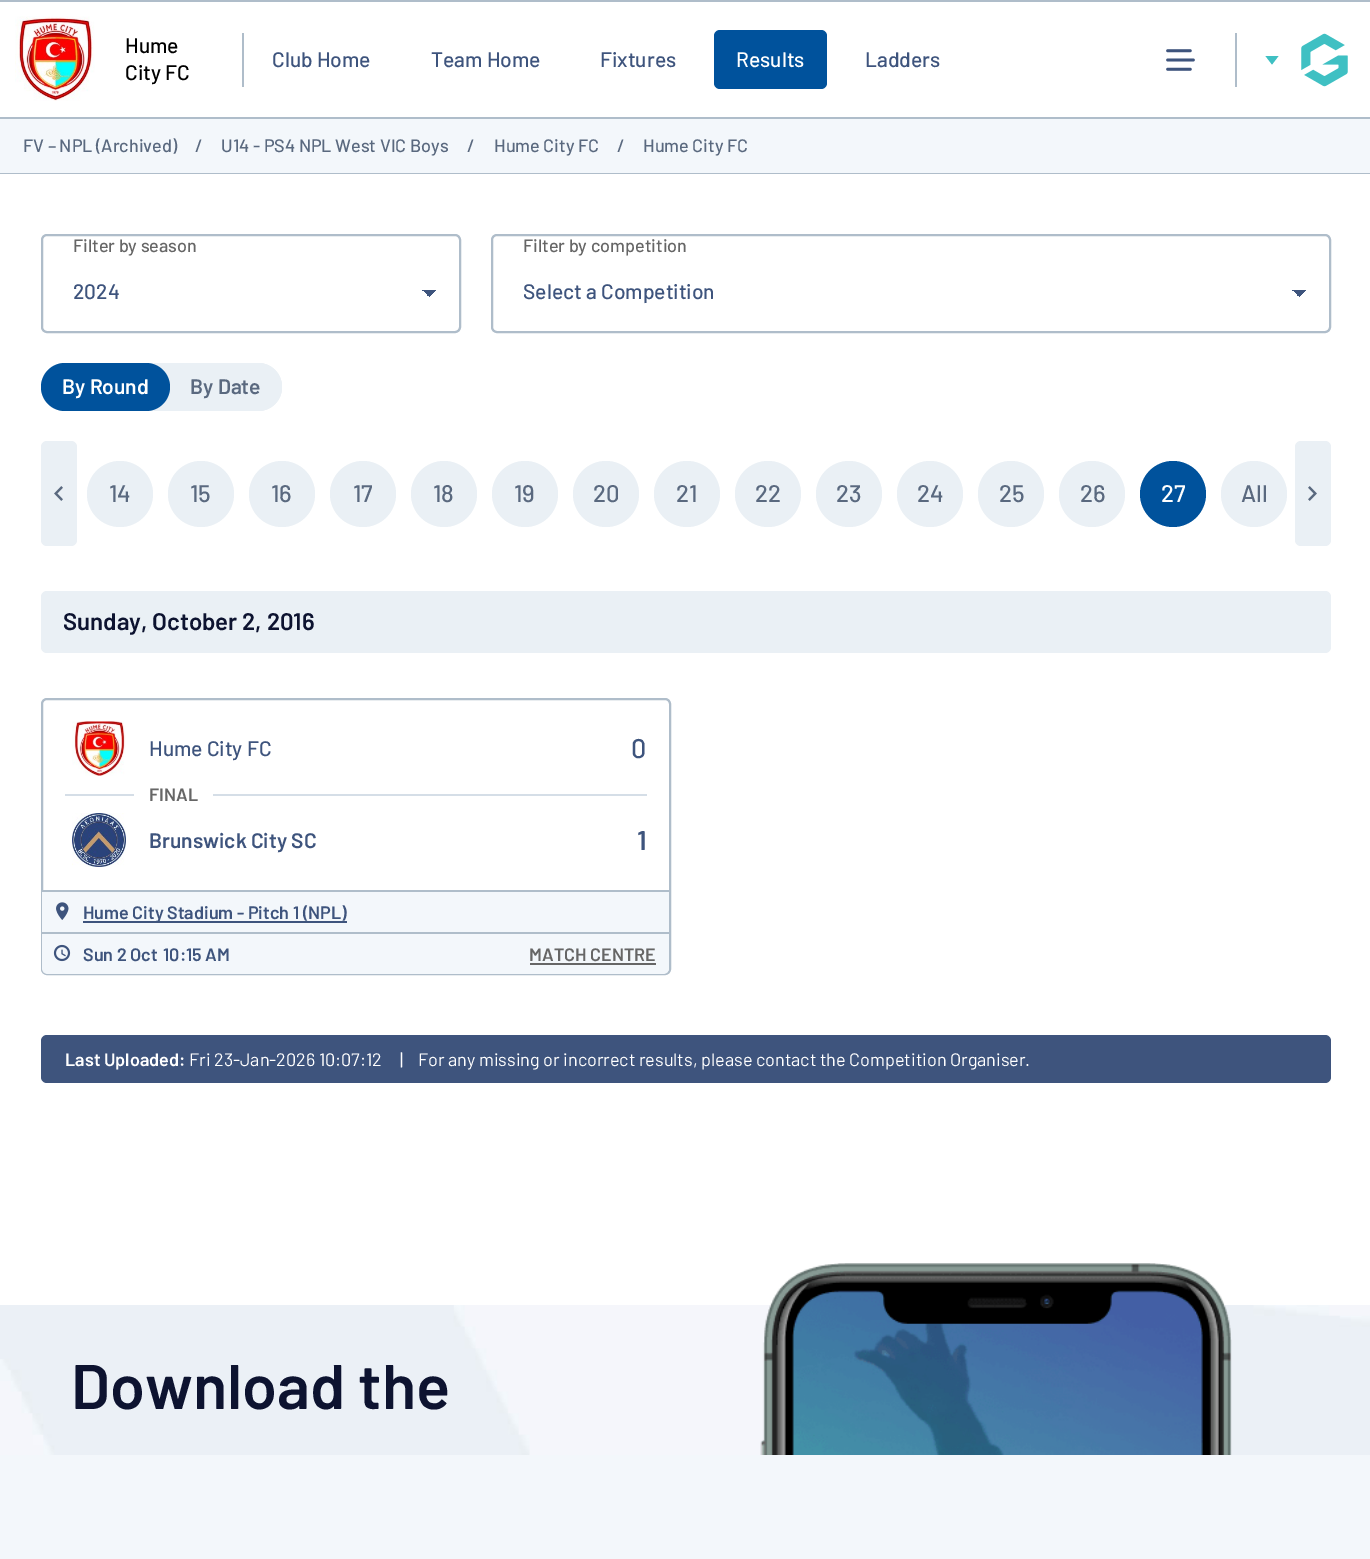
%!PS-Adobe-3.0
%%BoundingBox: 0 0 1370 1559
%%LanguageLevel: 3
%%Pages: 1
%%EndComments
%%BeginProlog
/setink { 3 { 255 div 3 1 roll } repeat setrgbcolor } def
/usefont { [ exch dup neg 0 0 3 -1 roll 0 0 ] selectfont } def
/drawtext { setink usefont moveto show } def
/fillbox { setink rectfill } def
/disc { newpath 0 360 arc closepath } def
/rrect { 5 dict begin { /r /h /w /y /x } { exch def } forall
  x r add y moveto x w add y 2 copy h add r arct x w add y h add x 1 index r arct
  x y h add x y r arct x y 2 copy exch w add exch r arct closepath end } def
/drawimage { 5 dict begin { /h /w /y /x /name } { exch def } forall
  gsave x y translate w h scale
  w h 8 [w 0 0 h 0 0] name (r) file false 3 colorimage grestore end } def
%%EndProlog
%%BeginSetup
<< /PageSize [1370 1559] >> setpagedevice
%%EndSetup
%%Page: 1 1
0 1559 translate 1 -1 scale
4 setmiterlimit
0 0 1370 1559 255 255 255 fillbox
0 0 1370 2 175 189 202 fillbox
0 117 1370 2 175 189 202 fillbox
(assets/img1.rgb) 15 16 80 85 drawimage
(Hume) 125 53 /Barlow-Medium 21 0 0 0 drawtext
(City FC) 125 80 /Barlow-Medium 21 0 0 0 drawtext
242 33 2 54 175 189 202 fillbox
(Club Home) 272 67 /Barlow-Medium 21 62 84 125 drawtext
(Team Home) 431 67 /Barlow-Medium 21 62 84 125 drawtext
(Fixtures) 600 67 /Barlow-Medium 21 62 84 125 drawtext
0 82 156 setink
714 30 113 59 6 rrect fill
(Results) 736 67 /Barlow-Medium 21 255 255 255 drawtext
(Ladders) 865 67 /Barlow-Medium 21 62 84 125 drawtext
(assets/img2.rgb) 1166 49 29 22 drawimage
1235 33 2 54 175 189 202 fillbox
63 192 195 setink
1272 64.5 moveto 1278.5 56 lineto 1265.5 56 lineto closepath fill
(assets/img3.rgb) 1301 33 47 54 drawimage
0 119 1370 54 243 247 251 fillbox
0 173 1370 1 175 189 202 fillbox
(FV – NPL \(Archived\)) 23 152 /Barlow-Medium 18 90 105 127 drawtext
(/) 195 152 /Barlow-Medium 18 90 105 127 drawtext
(U14 - PS4 NPL West VIC Boys) 221 152 /Barlow-Medium 18 90 105 127 drawtext
(/) 467 152 /Barlow-Medium 18 90 105 127 drawtext
(Hume City FC) 494 152 /Barlow-Medium 18 90 105 127 drawtext
(/) 617 152 /Barlow-Medium 18 90 105 127 drawtext
(Hume City FC) 643 152 /Barlow-Medium 18 90 105 127 drawtext
175 189 202 setink
2 setlinewidth
42 235 418 97 5 rrect stroke
(Filter by season) 73 252 /Barlow-Medium 18 102 102 102 drawtext
gsave 429 290 moveto 437 290 lineto 437 297 lineto 429 297 lineto closepath clip newpath
<< /ShadingType 2 /ColorSpace /DeviceRGB /Coords [429 290 437 297] /Extend [true true] /Function << /FunctionType 3 /Domain [0 1] /Functions [<< /FunctionType 2 /Domain [0 1] /C0 [0.243 0.329 0.49] /C1 [0.243 0.329 0.49] /N 1 >> << /FunctionType 2 /Domain [0 1] /C0 [1 1 1] /C1 [1 1 1] /N 1 >>] /Bounds [0.5] /Encode [0 1 0 1] >> >> shfill grestore
gsave 422 290 moveto 429 290 lineto 429 296 lineto 422 296 lineto closepath clip newpath
<< /ShadingType 2 /ColorSpace /DeviceRGB /Coords [422 297 429 290] /Extend [true true] /Function << /FunctionType 3 /Domain [0 1] /Functions [<< /FunctionType 2 /Domain [0 1] /C0 [1 1 1] /C1 [1 1 1] /N 1 >> << /FunctionType 2 /Domain [0 1] /C0 [0.243 0.329 0.49] /C1 [0.243 0.329 0.49] /N 1 >>] /Bounds [0.5] /Encode [0 1 0 1] >> >> shfill grestore
gsave
74 279 340 27 rectclip
(2024) 73 299 /Barlow-Medium 21 62 84 125 drawtext
grestore
175 189 202 setink
492 235 838 97 5 rrect stroke
(Filter by competition) 523 252 /Barlow-Medium 18 102 102 102 drawtext
gsave 1299 290 moveto 1307 290 lineto 1307 297 lineto 1299 297 lineto closepath clip newpath
<< /ShadingType 2 /ColorSpace /DeviceRGB /Coords [1299 290 1307 297] /Extend [true true] /Function << /FunctionType 3 /Domain [0 1] /Functions [<< /FunctionType 2 /Domain [0 1] /C0 [0.243 0.329 0.49] /C1 [0.243 0.329 0.49] /N 1 >> << /FunctionType 2 /Domain [0 1] /C0 [1 1 1] /C1 [1 1 1] /N 1 >>] /Bounds [0.5] /Encode [0 1 0 1] >> >> shfill grestore
gsave 1292 290 moveto 1299 290 lineto 1299 296 lineto 1292 296 lineto closepath clip newpath
<< /ShadingType 2 /ColorSpace /DeviceRGB /Coords [1292 297 1299 290] /Extend [true true] /Function << /FunctionType 3 /Domain [0 1] /Functions [<< /FunctionType 2 /Domain [0 1] /C0 [1 1 1] /C1 [1 1 1] /N 1 >> << /FunctionType 2 /Domain [0 1] /C0 [0.243 0.329 0.49] /C1 [0.243 0.329 0.49] /N 1 >>] /Bounds [0.5] /Encode [0 1 0 1] >> >> shfill grestore
(Select a Competition) 523 299 /Barlow-Medium 21 62 84 125 drawtext
234 240 245 setink
41 363 241 48 24 rrect fill
0 82 156 setink
41 363 129 48 24 rrect fill
(By Round) 62 394 /Barlow-SemiBold 21 255 255 255 drawtext
234 240 245 setink
170 363 moveto 258 363 lineto 271.5 363 282 373.5 282 387 curveto 282 400.5 271.5 411 258 411 curveto 170 411 lineto closepath fill
(By Date) 190 394 /Barlow-SemiBold 21 90 105 127 drawtext
234 240 245 setink
41 441 36 105 6 rrect fill
(assets/img4.rgb) 54 486 9 15 drawimage
120 494 33 disc fill
(14) 109 502 /Barlow-Medium 24 90 105 127 drawtext
234 240 245 setink
201 494 33 disc fill
(15) 190 502 /Barlow-Medium 24 90 105 127 drawtext
234 240 245 setink
282 494 33 disc fill
(16) 271 502 /Barlow-Medium 24 90 105 127 drawtext
234 240 245 setink
363 494 33 disc fill
(17) 353 502 /Barlow-Medium 24 90 105 127 drawtext
234 240 245 setink
444 494 33 disc fill
(18) 433 502 /Barlow-Medium 24 90 105 127 drawtext
234 240 245 setink
525 494 33 disc fill
(19) 514 502 /Barlow-Medium 24 90 105 127 drawtext
234 240 245 setink
606 494 33 disc fill
(20) 593 502 /Barlow-Medium 24 90 105 127 drawtext
234 240 245 setink
687 494 33 disc fill
(21) 676 502 /Barlow-Medium 24 90 105 127 drawtext
234 240 245 setink
768 494 33 disc fill
(22) 755 502 /Barlow-Medium 24 90 105 127 drawtext
234 240 245 setink
849 494 33 disc fill
(23) 836 502 /Barlow-Medium 24 90 105 127 drawtext
234 240 245 setink
930 494 33 disc fill
(24) 917 502 /Barlow-Medium 24 90 105 127 drawtext
234 240 245 setink
1011 494 33 disc fill
(25) 999 502 /Barlow-Medium 24 90 105 127 drawtext
234 240 245 setink
1092 494 33 disc fill
(26) 1080 502 /Barlow-Medium 24 90 105 127 drawtext
0 82 156 setink
1173 494 33 disc fill
(27) 1161 502 /Barlow-Medium 24 255 255 255 drawtext
234 240 245 setink
1254 494 33 disc fill
(All) 1241 502 /Barlow-Medium 24 90 105 127 drawtext
234 240 245 setink
1295 441 36 105 6 rrect fill
(assets/img5.rgb) 1308 486 9 15 drawimage
41 591 1290 62 6 rrect fill
(Sunday, October 2, 2016) 63 630 /Barlow-SemiBold 24 13 19 48 drawtext
175 189 202 setink
42 699 628 275 5 rrect stroke
(assets/img6.rgb) 72 721 54 55 drawimage
(Hume City FC) 149 756 /Barlow-Medium 21 62 84 125 drawtext
(0) 631 758 /Barlow-Medium 27 62 84 125 drawtext
65 794 69 2 213 222 231 fillbox
(FINAL) 149 801 /Barlow-SemiBold 18 102 102 102 drawtext
213 794 434 2 213 222 231 fillbox
(assets/img7.rgb) 72 813 54 54 drawimage
(Brunswick City SC) 149 848 /Barlow-SemiBold 21 62 84 125 drawtext
(1) 637 850 /Barlow-SemiBold 27 62 84 125 drawtext
243 247 251 setink
42 890 moveto 669 890 lineto 669 968 lineto 669 971.5 666.5 974 663 974 curveto 48 974 lineto 44.5 974 42 971.5 42 968 curveto closepath fill
42 890 627 2 175 189 202 fillbox
(assets/img8.rgb) 56 902 13 18 drawimage
83 921 264 2 62 84 125 fillbox
(Hume City Stadium - Pitch 1 \(NPL\)) 83 919 /Barlow-SemiBold 18 62 84 125 drawtext
42 932 627 2 175 189 202 fillbox
(assets/img9.rgb) 53 944 18 18 drawimage
(Sun 2 Oct) 83 961 /Barlow-SemiBold 18 62 84 125 drawtext
(10:15 AM) 163 961 /Barlow-SemiBold 18 62 84 125 drawtext
(MATCH CENTRE) 529 961 /Barlow-SemiBold 18 102 102 102 drawtext
530 963 126 2 102 102 102 fillbox
62 84 125 setink
41 1035 1290 48 6 rrect fill
(Last Uploaded:) 65 1066 /Barlow-SemiBold 18 255 255 255 drawtext
(Fri 23-Jan-2026 10:07:12) 189 1066 /Barlow-Regular 18 255 255 255 drawtext
(|) 400 1066 /Barlow-Regular 18 255 255 255 drawtext
(For any missing or incorrect results, please contact the Competition Organiser.) 418 1066 /Barlow-Regular 18 255 255 255 drawtext
(assets/img10.rgb) 0 1305 1370 150 drawimage
(Download the) 71 1409 /Barlow-SemiBold 63 13 19 48 drawtext
(assets/img11.rgb) 760 1263 472 192 drawimage
0 1455 1370 104 243 247 251 fillbox
showpage
%%EOF
